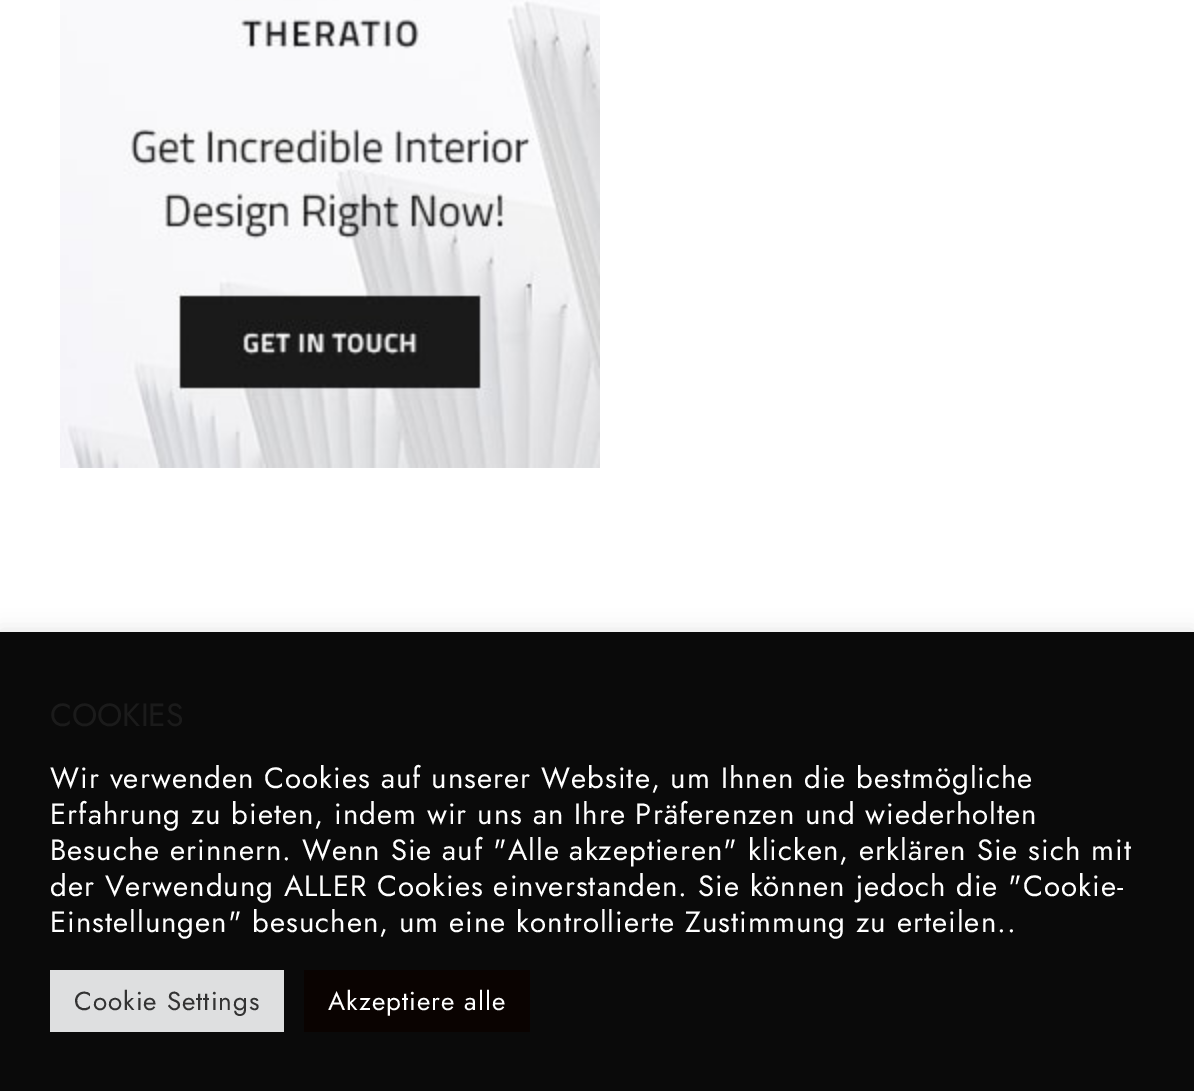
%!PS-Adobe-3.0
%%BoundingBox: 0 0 1194 1091
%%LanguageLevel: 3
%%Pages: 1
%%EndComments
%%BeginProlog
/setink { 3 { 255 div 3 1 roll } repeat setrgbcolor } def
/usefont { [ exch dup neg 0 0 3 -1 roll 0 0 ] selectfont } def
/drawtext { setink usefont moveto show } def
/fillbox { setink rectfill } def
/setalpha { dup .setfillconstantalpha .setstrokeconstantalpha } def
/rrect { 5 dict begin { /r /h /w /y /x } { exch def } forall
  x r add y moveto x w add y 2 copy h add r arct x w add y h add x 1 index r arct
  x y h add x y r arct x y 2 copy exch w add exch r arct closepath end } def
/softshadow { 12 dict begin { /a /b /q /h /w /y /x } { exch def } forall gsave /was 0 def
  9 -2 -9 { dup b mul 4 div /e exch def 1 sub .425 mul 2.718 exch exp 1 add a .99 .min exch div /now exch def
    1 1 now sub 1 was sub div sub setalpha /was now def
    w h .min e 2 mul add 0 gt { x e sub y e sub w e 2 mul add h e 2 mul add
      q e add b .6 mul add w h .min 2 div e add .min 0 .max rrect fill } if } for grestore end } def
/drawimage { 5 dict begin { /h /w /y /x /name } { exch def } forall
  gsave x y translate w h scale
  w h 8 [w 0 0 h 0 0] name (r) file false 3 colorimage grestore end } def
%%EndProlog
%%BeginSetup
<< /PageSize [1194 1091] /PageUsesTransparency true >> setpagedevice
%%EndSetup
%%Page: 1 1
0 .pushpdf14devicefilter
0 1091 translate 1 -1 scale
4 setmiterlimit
0 0 1194 1091 255 255 255 fillbox
(assets/img1.rgb) 60 0 540 468 drawimage
172 171 171 setink
0 630 1194 460 0 10 0.3 softshadow
0 632 1194 459 10 10 10 fillbox
(COOKIES) 50 726 /Jost-Regular 32 27 27 27 drawtext
/Jost-Regular 29.35 usefont
255 255 255 setink
50 788 moveto 1 0 (Wir verwenden Cookies auf unserer Website, um Ihnen die bestmögliche) ashow
50 824 moveto 1 0 (Erfahrung zu bieten, indem wir uns an Ihre Präferenzen und wiederholten) ashow
50 860 moveto 1 0 (Besuche erinnern. Wenn Sie auf "Alle akzeptieren" klicken, erklären Sie sich mit) ashow
50 896 moveto 1 0 (der Verwendung ALLER Cookies einverstanden. Sie können jedoch die "Cookie-) ashow
50 932 moveto 1 0 (Einstellungen" besuchen, um eine kontrollierte Zustimmung zu erteilen..) ashow
50 970 234 62 222 223 224 fillbox
/Jost-Regular 26 usefont
51 51 51 setink
74 1010 moveto 1 0 (Cookie Settings) ashow
304 970 226 62 10 3 1 fillbox
255 255 255 setink
328 1010 moveto 1 0 (Akzeptiere alle) ashow
.poppdf14devicefilter showpage
%%EOF
